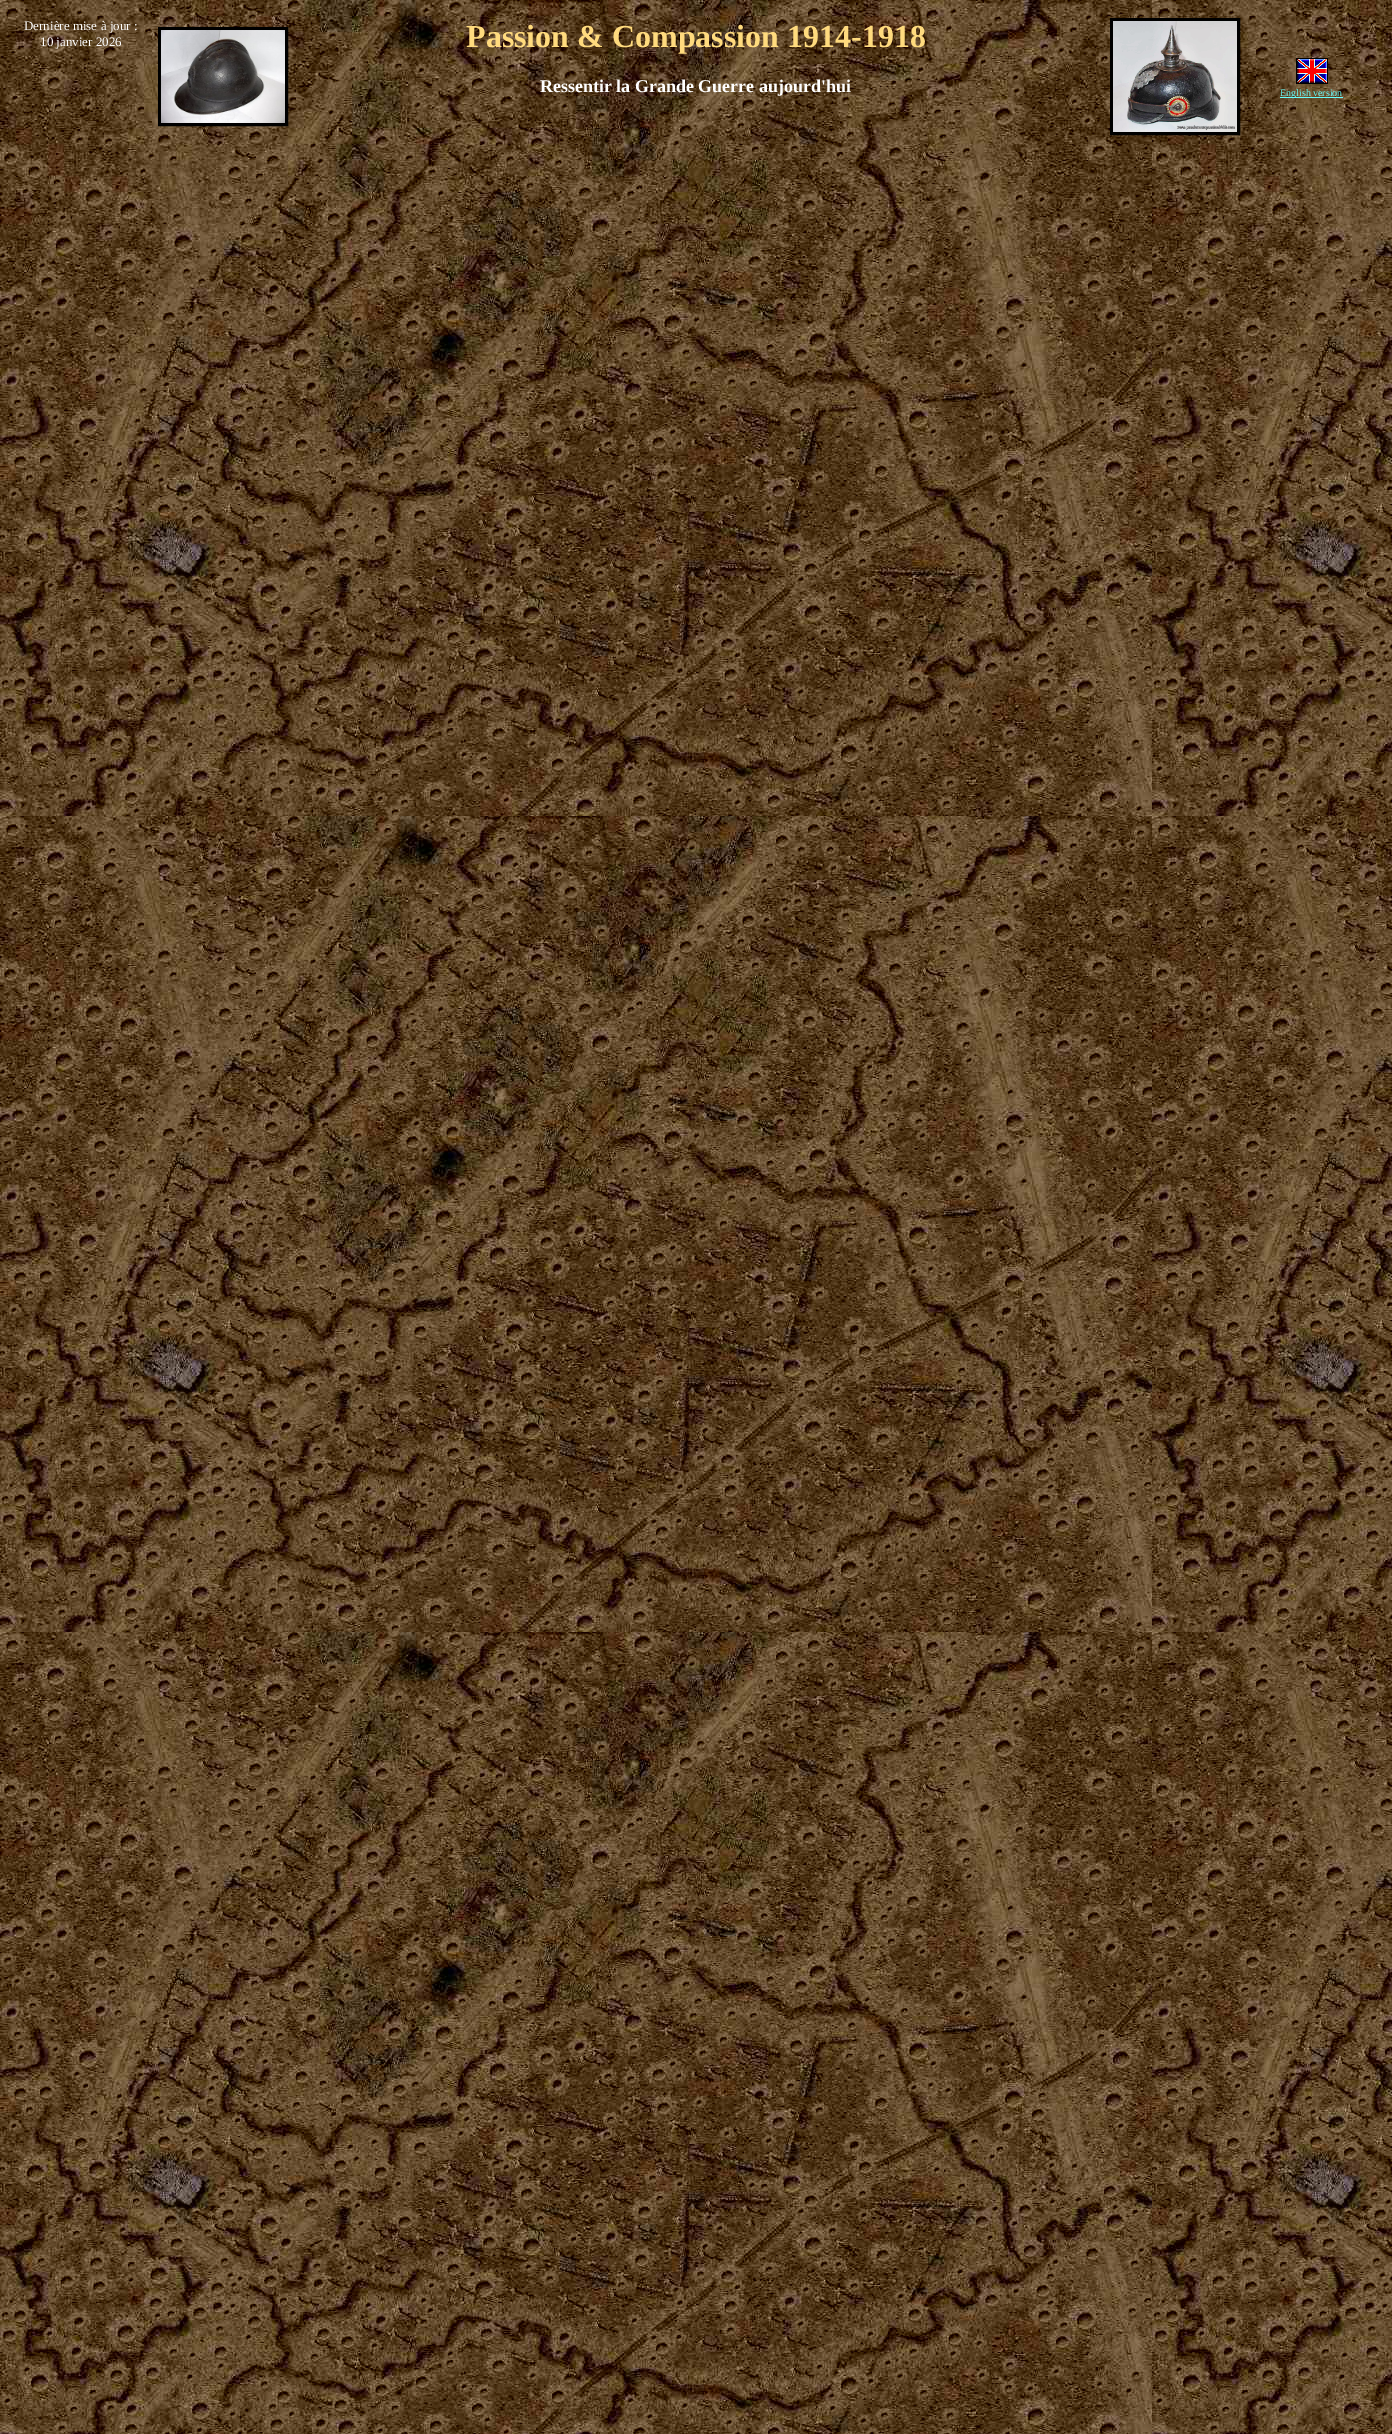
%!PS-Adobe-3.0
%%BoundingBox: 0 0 1392 2434
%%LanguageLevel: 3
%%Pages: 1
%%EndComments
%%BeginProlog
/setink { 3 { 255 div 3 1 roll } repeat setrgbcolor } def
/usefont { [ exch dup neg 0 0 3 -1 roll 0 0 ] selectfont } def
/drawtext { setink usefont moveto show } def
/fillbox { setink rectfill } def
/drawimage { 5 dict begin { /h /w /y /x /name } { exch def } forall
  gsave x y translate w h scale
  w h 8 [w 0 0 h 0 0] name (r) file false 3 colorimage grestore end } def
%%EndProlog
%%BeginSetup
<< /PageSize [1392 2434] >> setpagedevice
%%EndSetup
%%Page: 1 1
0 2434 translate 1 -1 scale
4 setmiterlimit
0 0 1392 2434 255 255 255 fillbox
(assets/img1.rgb) 0 0 1392 2434 drawimage
(Dernière mise à jour :) 24 30 /LiberationSerif-Regular 13 255 255 255 drawtext
(10 janvier 2026) 40 46 /LiberationSerif-Regular 13 255 255 255 drawtext
0 0 0 setink
3 setlinewidth
159.5 28.5 127 96 rectstroke
(assets/img2.rgb) 161 30 124 93 drawimage
(Passion & Compassion 1914-1918) 466 47 /LiberationSerif-Bold 32 255 219 126 drawtext
(Ressentir la Grande Guerre aujourd'hui) 540 92 /LiberationSerif-Bold 18 255 255 255 drawtext
0 0 0 setink
1111.5 19.5 127 114 rectstroke
(assets/img3.rgb) 1113 21 124 111 drawimage
(assets/img4.rgb) 1296 58 32 26 drawimage
1280 97 63 1 102 255 255 fillbox
(English version) 1280 96 /LiberationSerif-Regular 10 102 255 255 drawtext
showpage
%%EOF
